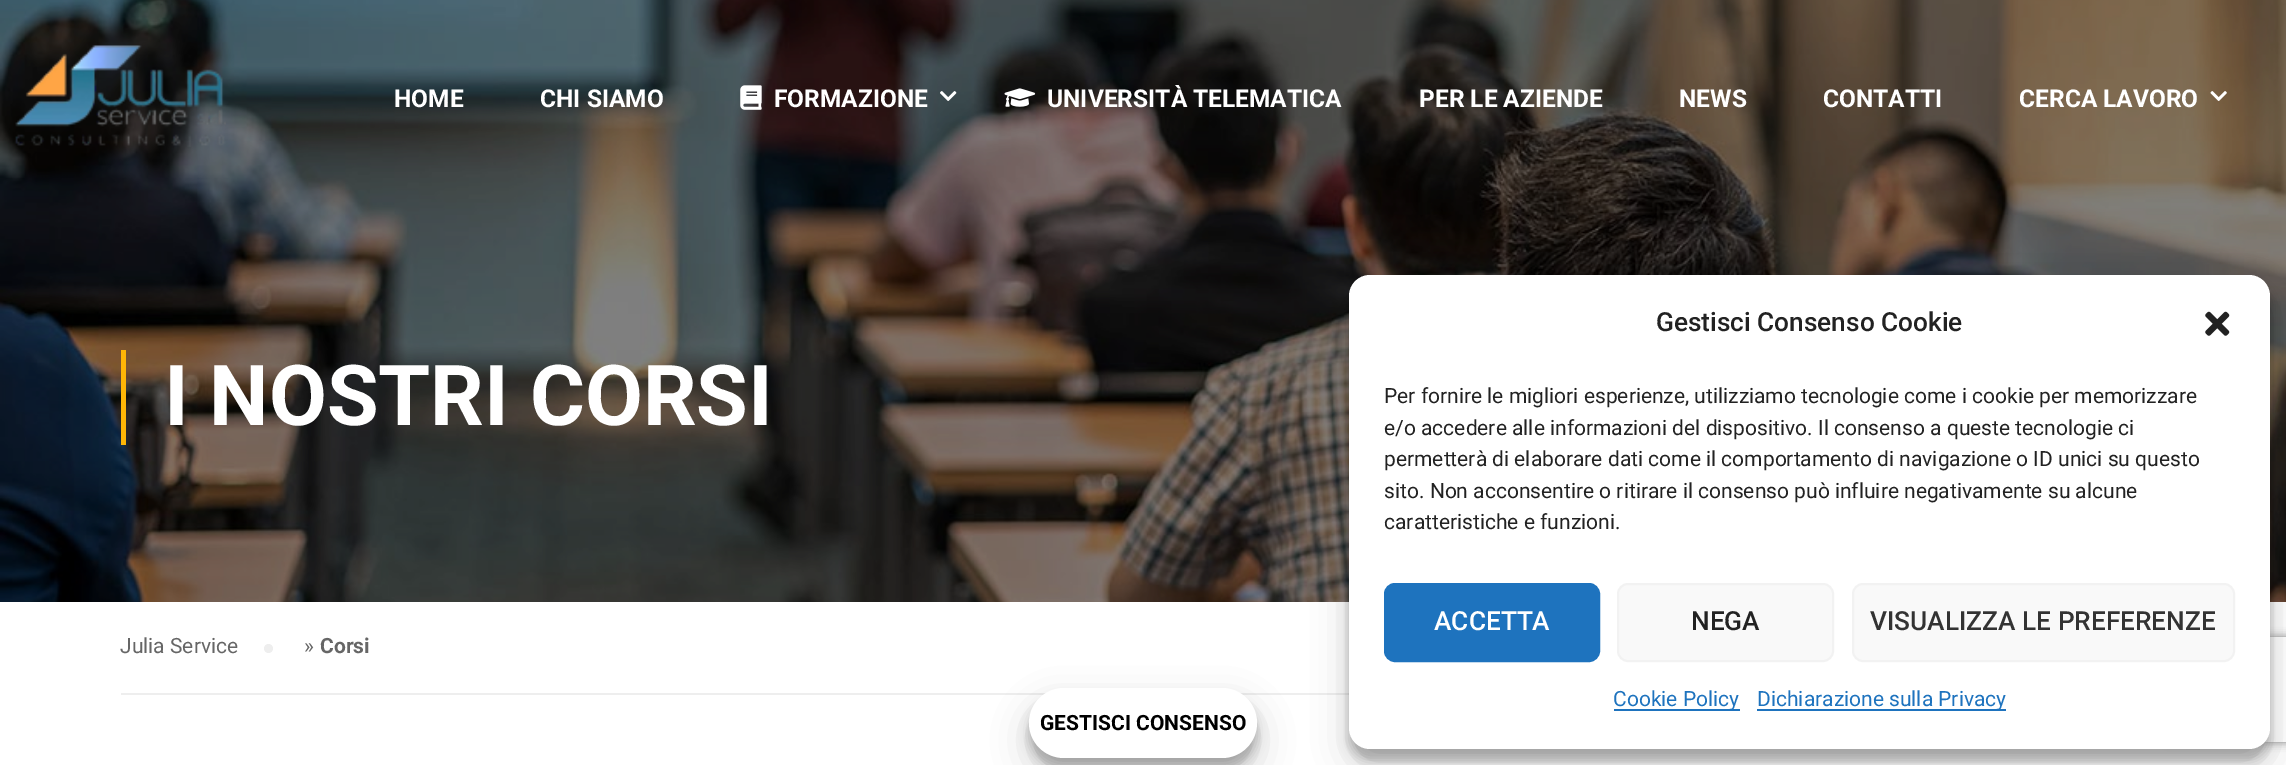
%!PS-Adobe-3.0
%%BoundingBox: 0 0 2286 765
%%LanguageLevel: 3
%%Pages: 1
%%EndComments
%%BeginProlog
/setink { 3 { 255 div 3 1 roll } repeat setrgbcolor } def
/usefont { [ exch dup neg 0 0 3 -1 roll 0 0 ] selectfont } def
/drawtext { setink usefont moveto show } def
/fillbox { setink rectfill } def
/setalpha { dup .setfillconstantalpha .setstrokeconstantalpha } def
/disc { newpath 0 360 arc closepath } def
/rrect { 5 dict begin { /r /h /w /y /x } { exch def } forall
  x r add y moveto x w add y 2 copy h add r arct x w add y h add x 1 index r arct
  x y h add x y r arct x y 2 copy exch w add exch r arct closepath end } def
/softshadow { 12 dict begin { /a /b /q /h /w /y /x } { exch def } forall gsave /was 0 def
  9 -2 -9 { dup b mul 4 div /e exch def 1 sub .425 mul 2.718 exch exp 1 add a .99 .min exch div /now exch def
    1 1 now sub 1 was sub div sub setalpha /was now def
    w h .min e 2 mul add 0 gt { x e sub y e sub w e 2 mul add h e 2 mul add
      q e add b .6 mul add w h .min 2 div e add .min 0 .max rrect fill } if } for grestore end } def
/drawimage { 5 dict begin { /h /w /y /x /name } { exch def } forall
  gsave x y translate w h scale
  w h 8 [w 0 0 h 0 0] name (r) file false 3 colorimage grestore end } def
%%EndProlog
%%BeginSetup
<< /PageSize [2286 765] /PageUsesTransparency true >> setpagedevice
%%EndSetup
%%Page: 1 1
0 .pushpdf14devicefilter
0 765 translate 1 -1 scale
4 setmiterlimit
0 0 2286 765 255 255 255 fillbox
(assets/img6.rgb) 0 0 2286 602 drawimage
(assets/img1.rgb) 15 45 211 102 drawimage
(HOME) 394 107 /Roboto-Bold 24.5 255 255 255 drawtext
(CHI SIAMO) 540 107 /Roboto-Bold 24.5 255 255 255 drawtext
(assets/img2.rgb) 740 85 22 25 drawimage
(FORMAZIONE) 774 107 /Roboto-Bold 24.5 255 255 255 drawtext
(assets/img3.rgb) 940 91 17 10 drawimage
(assets/img4.rgb) 1004 88 32 19 drawimage
(UNIVERSITÀ TELEMATICA) 1047 107 /Roboto-Bold 24.5 255 255 255 drawtext
(PER LE AZIENDE) 1419 107 /Roboto-Bold 24.5 255 255 255 drawtext
(NEWS) 1679 107 /Roboto-Bold 24.5 255 255 255 drawtext
(CONTATTI) 1823 107 /Roboto-Bold 24.5 255 255 255 drawtext
(CERCA LAVORO) 2019 107 /Roboto-Bold 24.5 255 255 255 drawtext
(assets/img5.rgb) 2210 91 17 10 drawimage
121 350 5 95 255 182 6 fillbox
(I NOSTRI CORSI) 164 425 /Roboto-Bold 84 255 255 255 drawtext
121 693 1228 2 238 238 238 fillbox
(Julia Service) 120 653 /Roboto-Regular 21 102 102 102 drawtext
238 238 238 setink
268.5 648.5 4.5 disc fill
(») 304 653 /Roboto-Regular 21 102 102 102 drawtext
(Corsi) 320 653 /Roboto-Bold 21 102 102 102 drawtext
0 0 0 setink
1029 698 228 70 35 5 0.23 softshadow
1029 705 228 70 35 17.5 0.19 softshadow
255 255 255 setink
1029 688 228 70 35 rrect fill
(GESTISCI CONSENSO) 1040 730 /Roboto-Bold 21 0 0 0 drawtext
1349 285 921 475 21 5 0.23 softshadow
1349 292 921 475 21 17.5 0.19 softshadow
gsave
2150 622 moveto 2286 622 lineto 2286 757 lineto 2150 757 lineto closepath 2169 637 moveto 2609 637 lineto 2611 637 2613 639 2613 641 curveto 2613 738 lineto 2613 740 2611 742 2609 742 curveto 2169 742 lineto 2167 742 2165 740 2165 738 curveto 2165 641 lineto 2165 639 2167 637 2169 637 curveto closepath eoclip newpath
128 128 128 setink
2165 637 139 105 4 4.5 1 softshadow
grestore
255 255 255 setink
1349 275 921 474 21 rrect fill
(Gestisci Consenso Cookie) 1656 331 /Roboto-Medium 26.25 34 34 34 drawtext
(assets/img7.rgb) 2205 311 25 25 drawimage
(Per fornire le migliori esperienze, utilizziamo tecnologie come i cookie per memorizzare) 1384 403 /Roboto-Regular 21 34 34 34 drawtext
(e/o accedere alle informazioni del dispositivo. Il consenso a queste tecnologie ci) 1384 435 /Roboto-Regular 21 34 34 34 drawtext
(permetterà di elaborare dati come il comportamento di navigazione o ID unici su questo) 1384 466 /Roboto-Regular 21 34 34 34 drawtext
(sito. Non acconsentire o ritirare il consenso può influire negativamente su alcune) 1384 498 /Roboto-Regular 21 34 34 34 drawtext
(caratteristiche e funzioni.) 1384 529 /Roboto-Regular 21 34 34 34 drawtext
30 115 190 setink
1385 584 214 77 10 rrect gsave fill grestore
2 setlinewidth
stroke
(ACCETTA) 1434 630 /Roboto-Medium 26.25 255 255 255 drawtext
249 249 249 setink
1618 584 215 77 10 rrect gsave fill grestore
242 242 242 setink
stroke
(NEGA) 1691 630 /Roboto-Medium 26.25 34 34 34 drawtext
249 249 249 setink
1853 584 381 77 10 rrect gsave fill grestore
242 242 242 setink
stroke
(VISUALIZZA LE PREFERENZE) 1870 630 /Roboto-Medium 26.25 51 51 51 drawtext
1614 709 126 2 30 115 190 fillbox
(Cookie Policy) 1613 706 /Roboto-Regular 21 30 115 190 drawtext
1757 709 249 2 30 115 190 fillbox
(Dichiarazione sulla Privacy) 1757 706 /Roboto-Regular 21 30 115 190 drawtext
.poppdf14devicefilter showpage
%%EOF
